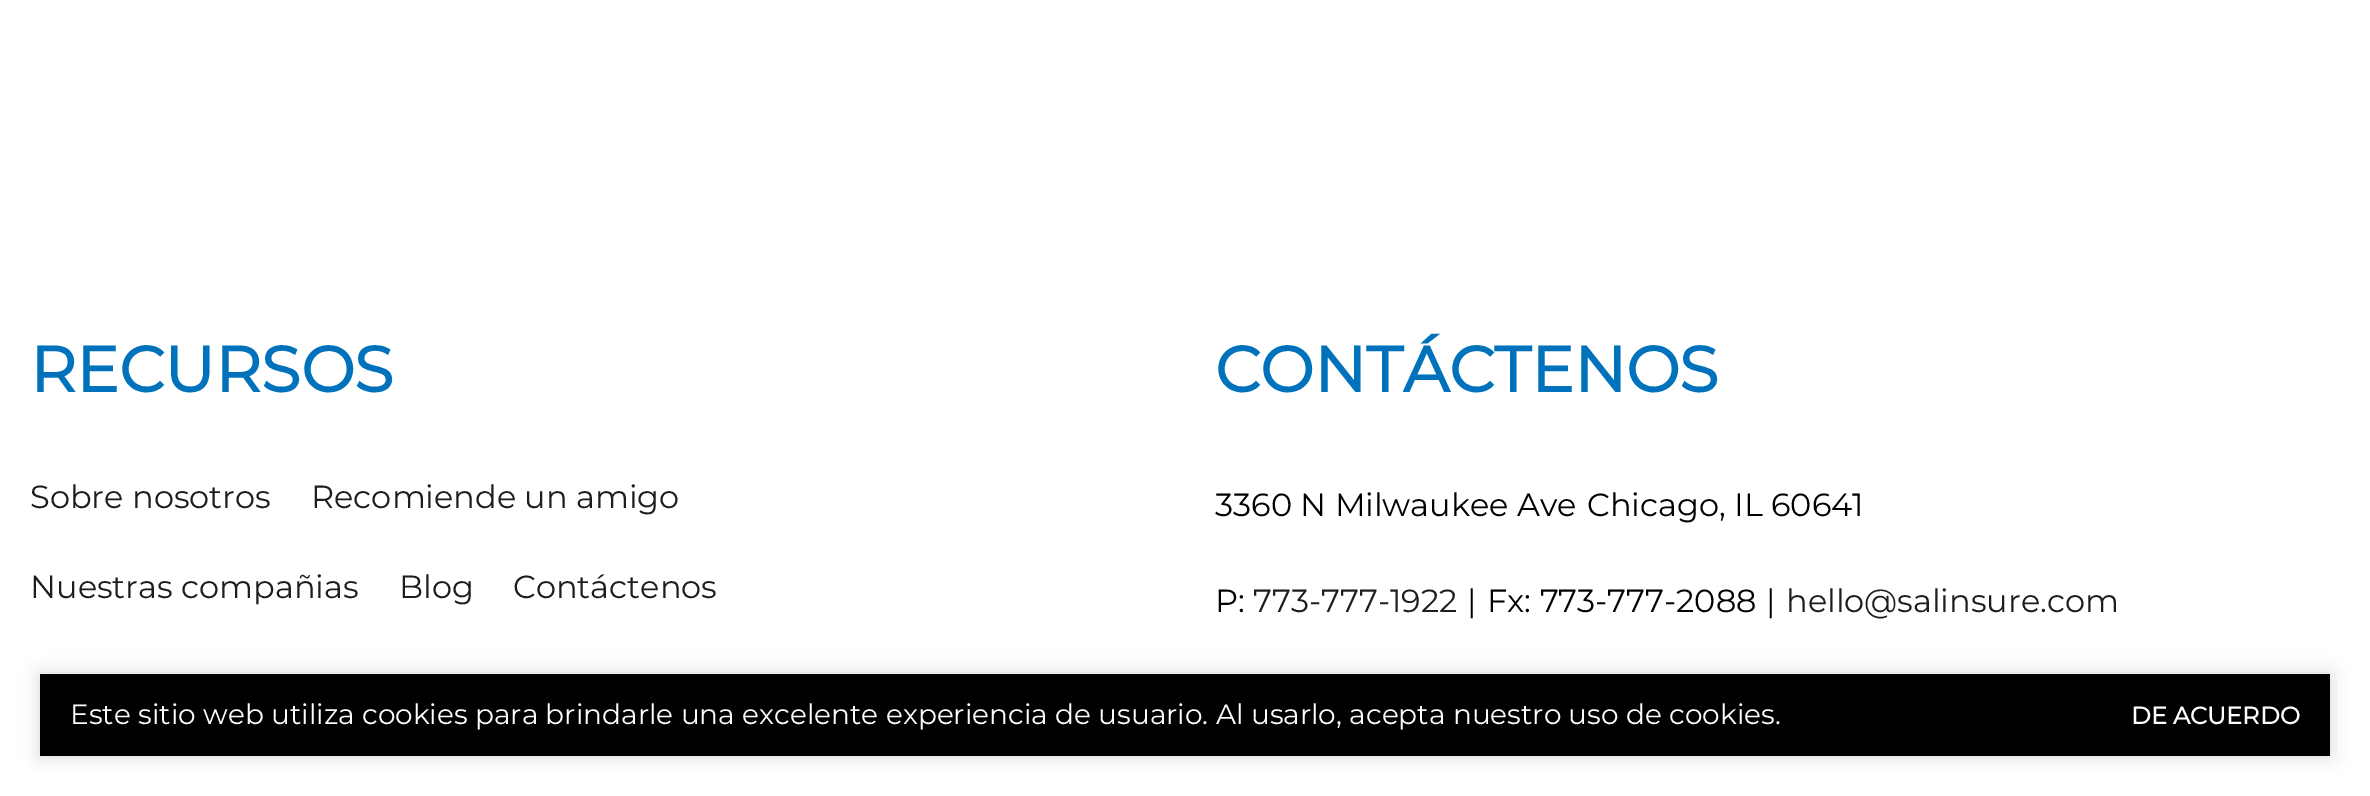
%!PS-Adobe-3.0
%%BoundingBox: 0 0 2370 796
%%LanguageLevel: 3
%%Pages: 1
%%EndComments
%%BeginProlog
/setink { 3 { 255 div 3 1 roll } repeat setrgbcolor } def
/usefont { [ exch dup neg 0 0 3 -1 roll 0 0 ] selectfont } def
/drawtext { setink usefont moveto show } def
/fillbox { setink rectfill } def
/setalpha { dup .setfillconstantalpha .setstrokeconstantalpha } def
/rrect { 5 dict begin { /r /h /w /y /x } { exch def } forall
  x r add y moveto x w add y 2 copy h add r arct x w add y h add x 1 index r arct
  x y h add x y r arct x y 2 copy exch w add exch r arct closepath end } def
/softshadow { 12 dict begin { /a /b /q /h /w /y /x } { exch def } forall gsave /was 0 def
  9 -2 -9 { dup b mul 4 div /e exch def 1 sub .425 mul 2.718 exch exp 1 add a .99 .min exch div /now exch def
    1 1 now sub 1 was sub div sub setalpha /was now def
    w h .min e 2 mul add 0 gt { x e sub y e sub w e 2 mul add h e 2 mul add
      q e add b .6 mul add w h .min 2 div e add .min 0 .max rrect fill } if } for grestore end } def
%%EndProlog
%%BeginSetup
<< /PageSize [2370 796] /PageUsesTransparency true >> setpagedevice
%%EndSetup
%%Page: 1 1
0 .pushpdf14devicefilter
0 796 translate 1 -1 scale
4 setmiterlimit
0 0 2370 796 255 255 255 fillbox
(RECURSOS) 30 392 /Montserrat-Bold 64 0 114 188 drawtext
(Sobre nosotros) 30 508 /Montserrat-Thin 32 29 29 29 drawtext
(Recomiende un amigo) 311 508 /Montserrat-Thin 32 29 29 29 drawtext
(Nuestras compañias) 30 598 /Montserrat-Thin 32 29 29 29 drawtext
(Blog) 399 598 /Montserrat-Thin 32 29 29 29 drawtext
(Contáctenos) 513 598 /Montserrat-Thin 32 29 29 29 drawtext
(CONTÁCTENOS) 1215 392 /Montserrat-Bold 64 0 114 188 drawtext
(3360 N Milwaukee Ave) 1215 516 /Montserrat-Thin 32 0 0 0 drawtext
(Chicago, IL 60641) 1587 516 /Montserrat-Thin 32 0 0 0 drawtext
(P:) 1215 612 /Montserrat-Thin 32 0 0 0 drawtext
(773-777-1922) 1253 612 /Montserrat-Thin 32 29 29 29 drawtext
(|) 1467 612 /Montserrat-Thin 32 0 0 0 drawtext
(Fx: 773-777-2088) 1487 612 /Montserrat-Thin 32 0 0 0 drawtext
(|) 1766 612 /Montserrat-Thin 32 0 0 0 drawtext
(hello@salinsure.com) 1786 612 /Montserrat-Thin 32 29 29 29 drawtext
0 0 0 setink
40 674 2290 82 0 10 0.15 softshadow
40 674 2290 82 0 0 0 fillbox
(Este sitio web utiliza cookies para brindarle una excelente experiencia de usuario. Al usarlo, acepta nuestro uso de cookies.) 70 724 /Montserrat-Thin 28 255 255 255 drawtext
(DE ACUERDO) 2131 724 /Montserrat-Bold 24 255 255 255 drawtext
.poppdf14devicefilter showpage
%%EOF
